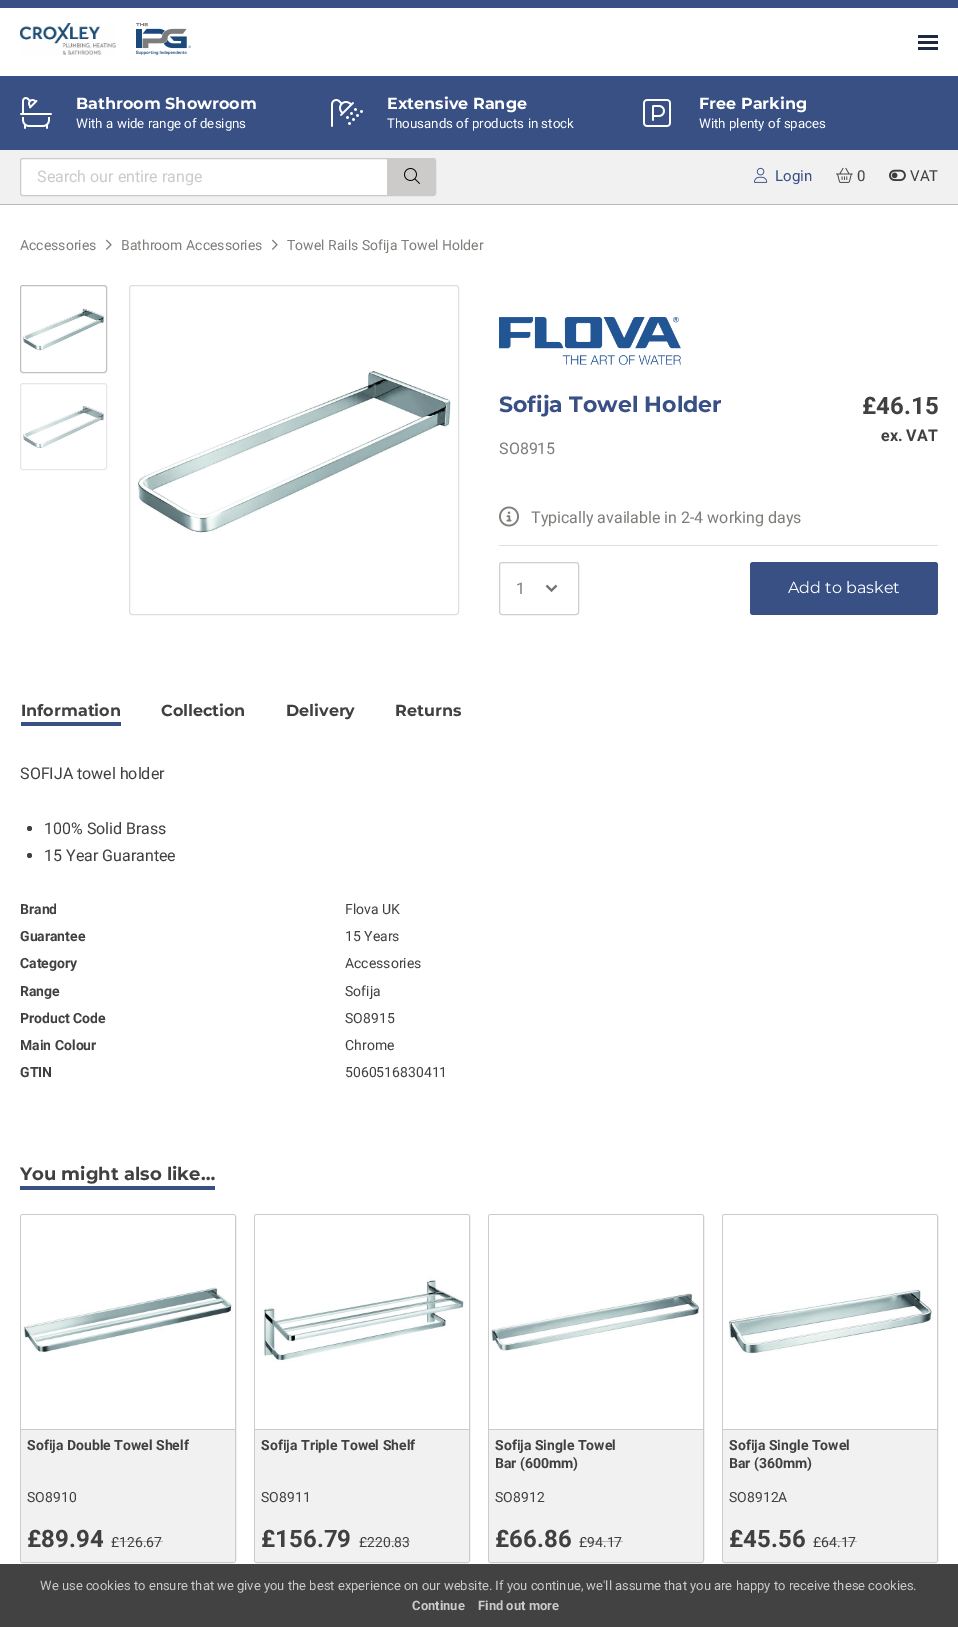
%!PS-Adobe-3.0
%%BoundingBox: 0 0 958 1627
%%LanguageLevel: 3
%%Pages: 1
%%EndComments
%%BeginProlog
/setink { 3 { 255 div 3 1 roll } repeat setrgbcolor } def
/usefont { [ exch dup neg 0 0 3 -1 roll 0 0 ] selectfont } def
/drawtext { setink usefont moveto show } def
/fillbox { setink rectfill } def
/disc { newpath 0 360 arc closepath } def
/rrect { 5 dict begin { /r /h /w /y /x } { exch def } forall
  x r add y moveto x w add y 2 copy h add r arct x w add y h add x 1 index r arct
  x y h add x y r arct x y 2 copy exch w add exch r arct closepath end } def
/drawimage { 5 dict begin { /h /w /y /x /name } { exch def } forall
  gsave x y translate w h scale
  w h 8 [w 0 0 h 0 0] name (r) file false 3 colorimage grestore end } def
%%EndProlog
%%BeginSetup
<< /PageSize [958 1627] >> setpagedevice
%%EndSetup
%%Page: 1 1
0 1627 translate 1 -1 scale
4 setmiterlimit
0 0 958 1627 255 255 255 fillbox
0 0 958 8 57 80 133 fillbox
(assets/img1.rgb) 20 23 96 32 drawimage
(assets/img2.rgb) 136 23 55 32 drawimage
918 41 20 3 29 40 66 fillbox
918 35 20 3 29 40 66 fillbox
918 47 20 3 29 40 66 fillbox
0 76 958 74 57 80 133 fillbox
(assets/img3.rgb) 20 97 32 32 drawimage
(Bathroom Showroom) 76 109 /Montserrat-Bold 16 255 255 255 drawtext
(With a wide range of designs) 76 128 /Roboto-Regular 13.3 255 255 255 drawtext
(assets/img4.rgb) 331 99 32 28 drawimage
(Extensive Range) 387 109 /Montserrat-Bold 16 255 255 255 drawtext
(Thousands of products in stock) 387 128 /Roboto-Regular 13.3 255 255 255 drawtext
(assets/img5.rgb) 643 99 28 28 drawimage
(Free Parking) 699 109 /Montserrat-Bold 16 255 255 255 drawtext
(With plenty of spaces) 699 128 /Roboto-Regular 13.3 255 255 255 drawtext
0 150 958 54 241 241 241 fillbox
0 204 958 1 185 185 185 fillbox
255 255 255 setink
23 158.5 moveto 387.5 158.5 lineto 387.5 195.5 lineto 23 195.5 lineto 21.5 195.5 20.5 194.5 20.5 193 curveto 20.5 161 lineto 20.5 159.5 21.5 158.5 23 158.5 curveto closepath gsave fill grestore
204 203 202 setink
stroke
(Search our entire range) 37 182 /Roboto-Regular 16 204 203 202 drawtext
388.5 158.5 moveto 433 158.5 lineto 434.5 158.5 435.5 159.5 435.5 161 curveto 435.5 193 lineto 435.5 194.5 434.5 195.5 433 195.5 curveto 388.5 195.5 lineto closepath gsave fill grestore
stroke
(assets/img6.rgb) 404 168 16 16 drawimage
(assets/img7.rgb) 754 167 14 16 drawimage
(Login) 775 181 /Roboto-Regular 15 57 80 133 drawtext
(assets/img8.rgb) 836 167 17 16 drawimage
(0) 857 181 /Roboto-Regular 15 64 64 64 drawtext
(assets/img9.rgb) 889 169 17 12 drawimage
(VAT) 910 181 /Roboto-Regular 15 64 64 64 drawtext
(Accessories) 20 250 /Roboto-Regular 14 126 125 122 drawtext
(assets/img10.rgb) 106 239 6 11 drawimage
(Bathroom Accessories) 121 250 /Roboto-Regular 14 126 125 122 drawtext
(assets/img10.rgb) 272 239 6 11 drawimage
(Towel Rails Sofija Towel Holder) 287 250 /Roboto-Regular 14 126 125 122 drawtext
192 192 192 setink
20.5 285.5 86 87 2.5 rrect stroke
(assets/img11.rgb) 23 308 82 43 drawimage
231 231 231 setink
20.5 383.5 86 86 2.5 rrect stroke
(assets/img12.rgb) 23 406 82 43 drawimage
223 223 223 setink
129.5 285.5 329 329 2.5 rrect stroke
(assets/img13.rgb) 138 371 313 162 drawimage
(assets/img14.rgb) 499 317 182 48 drawimage
(Sofija Towel Holder) 499 412 /Montserrat-Bold 22 57 80 133 drawtext
(SO8915) 499 454 /Roboto-Regular 16 126 125 122 drawtext
(£46.15) 862 414 /Roboto-Bold 24 64 64 64 drawtext
(ex. VAT) 881 441 /Roboto-Bold 16 64 64 64 drawtext
(assets/img15.rgb) 499 506 20 21 drawimage
(Typically available in 2-4 working days) 531 523 /Roboto-Regular 16 126 125 122 drawtext
499 545 439 1 223 223 223 fillbox
112 112 112 setink
2 setlinewidth
546.5 585.5 moveto 551.5 590.5 lineto 556.5 585.5 lineto stroke
207 207 207 setink
1 setlinewidth
499.5 562.5 79 52 2.5 rrect stroke
(1) 516 594 /Roboto-Regular 16 126 125 122 drawtext
57 80 133 setink
750 562 188 53 3 rrect fill
(Add to basket) 788 593 /Montserrat-Regular 16 255 255 255 drawtext
(Information) 21 716 /Montserrat-Bold 16 64 64 64 drawtext
21 722 100 4 57 80 133 fillbox
(Collection) 161 716 /Montserrat-Bold 16 64 64 64 drawtext
(Delivery) 286 716 /Montserrat-Bold 16 64 64 64 drawtext
(Returns) 395 716 /Montserrat-Bold 16 64 64 64 drawtext
(SOFIJA towel holder) 20 779 /Roboto-Regular 16 64 64 64 drawtext
29.5 828.5 2.5 disc fill
(100% Solid Brass) 44 834 /Roboto-Regular 16 64 64 64 drawtext
29.5 855.5 2.5 disc fill
(15 Year Guarantee) 44 861 /Roboto-Regular 16 64 64 64 drawtext
(Brand) 20 914 /Roboto-Bold 14 64 64 64 drawtext
(Flova UK) 345 914 /Roboto-Regular 14 64 64 64 drawtext
(Guarantee) 20 941 /Roboto-Bold 14 64 64 64 drawtext
(15 Years) 345 941 /Roboto-Regular 14 64 64 64 drawtext
(Category) 20 968 /Roboto-Bold 14 64 64 64 drawtext
(Accessories) 345 968 /Roboto-Regular 14 64 64 64 drawtext
(Range) 20 996 /Roboto-Bold 14 64 64 64 drawtext
(Sofija) 345 996 /Roboto-Regular 14 64 64 64 drawtext
(Product Code) 20 1023 /Roboto-Bold 14 64 64 64 drawtext
(SO8915) 345 1023 /Roboto-Regular 14 64 64 64 drawtext
(Main Colour) 20 1050 /Roboto-Bold 14 64 64 64 drawtext
(Chrome) 345 1050 /Roboto-Regular 14 64 64 64 drawtext
(GTIN) 20 1077 /Roboto-Bold 14 64 64 64 drawtext
(5060516830411) 345 1077 /Roboto-Regular 14 64 64 64 drawtext
(You might also like…) 20 1180 /Montserrat-Bold 18 64 64 64 drawtext
20 1186 195 4 57 80 133 fillbox
204 203 202 setink
20.5 1214.5 215 348 2.5 rrect stroke
255 255 255 setink
23 1215 moveto 233 1215 lineto 234 1215 235 1216 235 1217 curveto 235 1429 lineto 21 1429 lineto 21 1217 lineto 21 1216 22 1215 23 1215 curveto closepath fill
(assets/img16.rgb) 21 1287 212 66 drawimage
241 241 241 setink
21 1429 moveto 235 1429 lineto 235 1560 lineto 235 1561 234 1562 233 1562 curveto 23 1562 lineto 22 1562 21 1561 21 1560 curveto closepath fill
21 1429 214 1 204 203 202 fillbox
(Sofija Double Towel Shelf) 27 1450 /Roboto-Bold 14 64 64 64 drawtext
(SO8910) 27 1502 /Roboto-Regular 14 64 64 64 drawtext
(£89.94) 27 1547 /Roboto-Bold 24 64 64 64 drawtext
111 1541 52 1 181 181 181 fillbox
(£126.67) 111 1547 /Roboto-Regular 14 64 64 64 drawtext
204 203 202 setink
254.5 1214.5 215 348 2.5 rrect stroke
255 255 255 setink
257 1215 moveto 467 1215 lineto 468 1215 469 1216 469 1217 curveto 469 1429 lineto 255 1429 lineto 255 1217 lineto 255 1216 256 1215 257 1215 curveto closepath fill
(assets/img17.rgb) 261 1277 203 86 drawimage
241 241 241 setink
255 1429 moveto 469 1429 lineto 469 1560 lineto 469 1561 468 1562 467 1562 curveto 257 1562 lineto 256 1562 255 1561 255 1560 curveto closepath fill
255 1429 214 1 204 203 202 fillbox
(Sofija Triple Towel Shelf) 261 1450 /Roboto-Bold 14 64 64 64 drawtext
(SO8911) 261 1502 /Roboto-Regular 14 64 64 64 drawtext
(£156.79) 261 1547 /Roboto-Bold 24 64 64 64 drawtext
359 1541 51 1 181 181 181 fillbox
(£220.83) 359 1547 /Roboto-Regular 14 64 64 64 drawtext
204 203 202 setink
488.5 1214.5 215 348 2.5 rrect stroke
255 255 255 setink
491 1215 moveto 701 1215 lineto 702 1215 703 1216 703 1217 curveto 703 1429 lineto 489 1429 lineto 489 1217 lineto 489 1216 490 1215 491 1215 curveto closepath fill
(assets/img18.rgb) 489 1293 211 58 drawimage
241 241 241 setink
489 1429 moveto 703 1429 lineto 703 1560 lineto 703 1561 702 1562 701 1562 curveto 491 1562 lineto 490 1562 489 1561 489 1560 curveto closepath fill
489 1429 214 1 204 203 202 fillbox
(Sofija Single Towel) 495 1450 /Roboto-Bold 14 64 64 64 drawtext
(Bar \(600mm\)) 495 1468 /Roboto-Bold 14 64 64 64 drawtext
(SO8912) 495 1502 /Roboto-Regular 14 64 64 64 drawtext
(£66.86) 495 1547 /Roboto-Bold 24 64 64 64 drawtext
579 1541 44 1 181 181 181 fillbox
(£94.17) 579 1547 /Roboto-Regular 14 64 64 64 drawtext
204 203 202 setink
722.5 1214.5 215 348 2.5 rrect stroke
255 255 255 setink
725 1215 moveto 935 1215 lineto 936 1215 937 1216 937 1217 curveto 937 1429 lineto 723 1429 lineto 723 1217 lineto 723 1216 724 1215 725 1215 curveto closepath fill
(assets/img19.rgb) 729 1289 203 65 drawimage
241 241 241 setink
723 1429 moveto 937 1429 lineto 937 1560 lineto 937 1561 936 1562 935 1562 curveto 725 1562 lineto 724 1562 723 1561 723 1560 curveto closepath fill
723 1429 214 1 204 203 202 fillbox
(Sofija Single Towel) 729 1450 /Roboto-Bold 14 64 64 64 drawtext
(Bar \(360mm\)) 729 1468 /Roboto-Bold 14 64 64 64 drawtext
(SO8912A) 729 1502 /Roboto-Regular 14 64 64 64 drawtext
(£45.56) 729 1547 /Roboto-Bold 24 64 64 64 drawtext
813 1541 44 1 181 181 181 fillbox
(£64.17) 813 1547 /Roboto-Regular 14 64 64 64 drawtext
0 1564 958 63 66 66 66 fillbox
(We use cookies to ensure that we give you the best experience on our website. If you continue, we'll assume that you are happy to receive these cookies.) 40 1590 /Roboto-Regular 13 204 203 202 drawtext
(Continue) 412 1610 /Roboto-Bold 13 204 203 202 drawtext
(Find out more) 478 1610 /Roboto-Bold 13 204 203 202 drawtext
showpage
%%EOF
